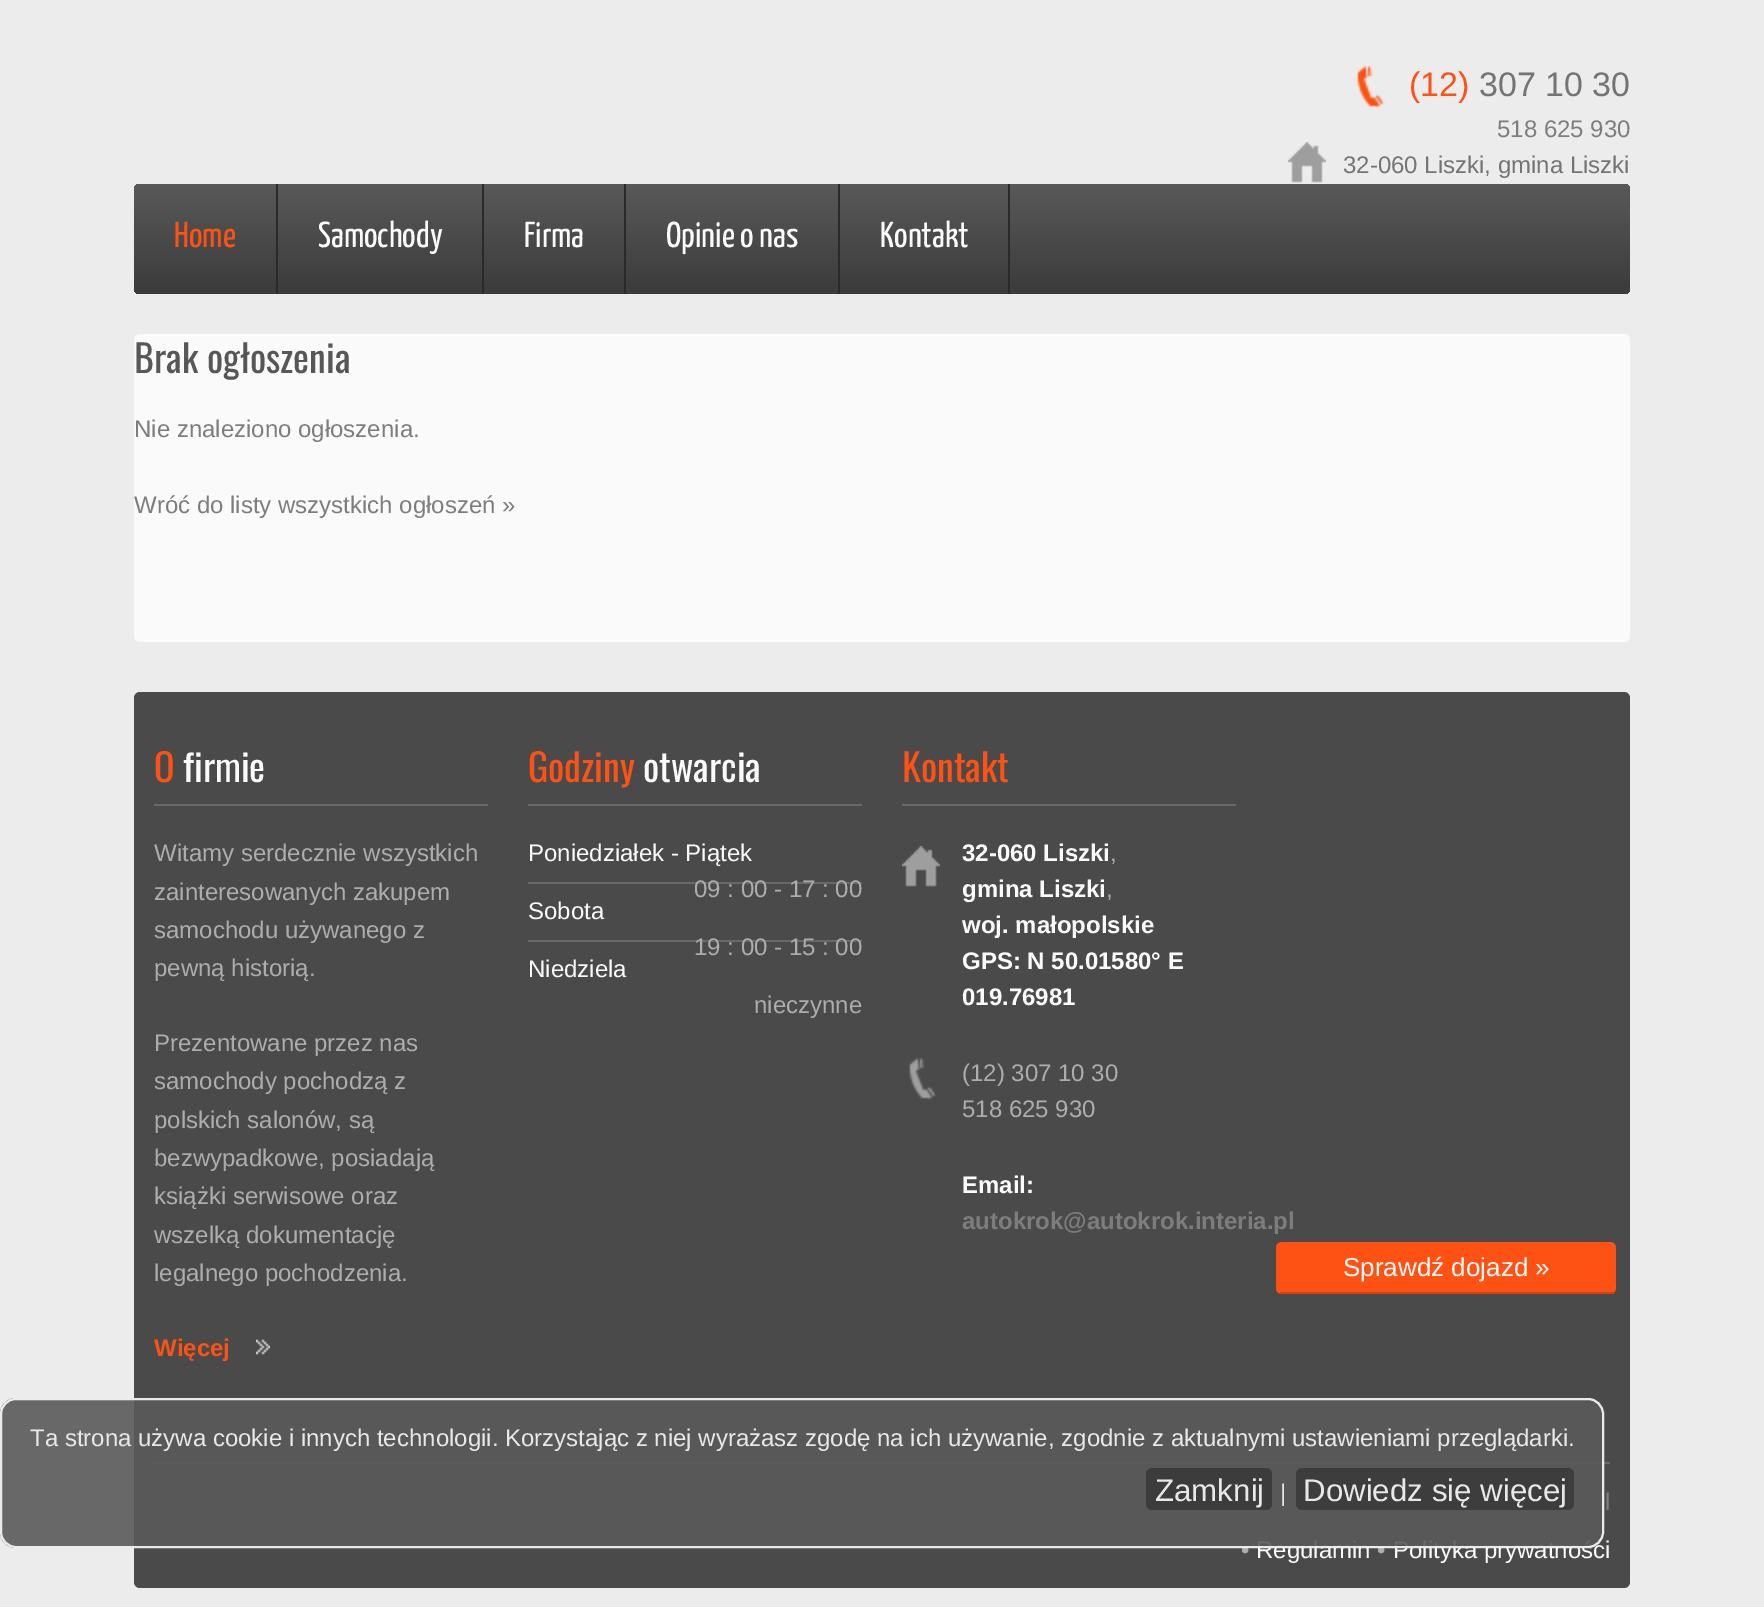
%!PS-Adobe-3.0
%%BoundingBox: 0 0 1764 1607
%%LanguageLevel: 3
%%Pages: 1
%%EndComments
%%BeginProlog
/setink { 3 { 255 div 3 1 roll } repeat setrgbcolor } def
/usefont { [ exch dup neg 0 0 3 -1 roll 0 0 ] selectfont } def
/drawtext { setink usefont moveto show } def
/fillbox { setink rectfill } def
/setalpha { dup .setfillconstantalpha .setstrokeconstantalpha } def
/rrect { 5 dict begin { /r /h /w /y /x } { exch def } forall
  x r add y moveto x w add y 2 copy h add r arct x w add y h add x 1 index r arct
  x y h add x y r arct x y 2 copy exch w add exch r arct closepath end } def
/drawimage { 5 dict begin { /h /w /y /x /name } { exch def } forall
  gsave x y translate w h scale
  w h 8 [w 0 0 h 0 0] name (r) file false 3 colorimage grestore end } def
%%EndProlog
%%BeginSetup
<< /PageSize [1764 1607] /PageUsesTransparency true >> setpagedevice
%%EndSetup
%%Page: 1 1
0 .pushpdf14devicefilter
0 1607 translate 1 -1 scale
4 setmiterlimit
0 0 1764 1607 236 236 236 fillbox
(assets/img1.rgb) 1356 65 29 44 drawimage
(\(12\)) 1409 96 /LiberationSans-Regular 34 254 82 20 drawtext
(307 10 30) 1479 96 /LiberationSans-Regular 34 117 115 115 drawtext
(518 625 930) 1497 137 /LiberationSans-Regular 24 125 125 125 drawtext
(assets/img2.rgb) 1288 142 38 41 drawimage
(32-060 Liszki, gmina Liszki) 1343 173 /LiberationSans-Regular 24 117 115 115 drawtext
gsave 134 184 1496 110 6 rrect clip newpath
<< /ShadingType 2 /ColorSpace /DeviceRGB /Coords [882 184 882 294] /Extend [true true] /Function << /FunctionType 2 /Domain [0 1] /C0 [0.349 0.349 0.349] /C1 [0.231 0.231 0.231] /N 1 >> >> shfill grestore
276 184 2 110 43 42 42 fillbox
(Home) 174 247 /YanoneKaffeesatz-ExtraLight 36 254 82 20 drawtext
482 184 2 110 43 42 42 fillbox
(Samochody) 318 247 /YanoneKaffeesatz-ExtraLight 36 251 250 250 drawtext
624 184 2 110 43 42 42 fillbox
(Firma) 524 247 /YanoneKaffeesatz-ExtraLight 36 251 250 250 drawtext
838 184 2 110 43 42 42 fillbox
(Opinie o nas) 666 247 /YanoneKaffeesatz-ExtraLight 36 251 250 250 drawtext
1008 184 2 110 43 42 42 fillbox
(Kontakt) 880 247 /YanoneKaffeesatz-ExtraLight 36 251 250 250 drawtext
134 334 1496 308 6 rrect fill
(Brak ogłoszenia) 134 373 /Oswald-Regular 38 88 87 87 drawtext
(Nie znaleziono ogłoszenia.) 134 437 /LiberationSans-Regular 24 125 125 125 drawtext
(Wróć do listy) 134 513 /LiberationSans-Regular 24 125 125 125 drawtext
(wszystkich ogłoszeń ») 278 513 /LiberationSans-Regular 24 125 125 125 drawtext
74 74 74 setink
134 692 1496 896 6 rrect fill
154 804 334 2 105 105 105 fillbox
(O) 154 782 /Oswald-Regular 38 254 82 20 drawtext
(firmie) 183 782 /Oswald-Regular 38 251 250 250 drawtext
(Witamy serdecznie wszystkich) 154 861 /LiberationSans-Regular 24 174 173 173 drawtext
(zainteresowanych zakupem) 154 900 /LiberationSans-Regular 24 174 173 173 drawtext
(samochodu używanego z) 154 938 /LiberationSans-Regular 24 174 173 173 drawtext
(pewną historią.) 154 976 /LiberationSans-Regular 24 174 173 173 drawtext
(Prezentowane przez nas) 154 1051 /LiberationSans-Regular 24 174 173 173 drawtext
(samochody pochodzą z) 154 1089 /LiberationSans-Regular 24 174 173 173 drawtext
(polskich salonów, są) 154 1128 /LiberationSans-Regular 24 174 173 173 drawtext
(bezwypadkowe, posiadają) 154 1166 /LiberationSans-Regular 24 174 173 173 drawtext
(książki serwisowe oraz) 154 1204 /LiberationSans-Regular 24 174 173 173 drawtext
(wszelką dokumentację) 154 1243 /LiberationSans-Regular 24 174 173 173 drawtext
(legalnego pochodzenia.) 154 1281 /LiberationSans-Regular 24 174 173 173 drawtext
(assets/img3.rgb) 256 1339 14 16 drawimage
(Więcej) 154 1356 /LiberationSans-Bold 24 254 82 20 drawtext
528 804 334 2 105 105 105 fillbox
(Godziny) 528 782 /Oswald-Regular 38 254 82 20 drawtext
(otwarcia) 643 782 /Oswald-Regular 38 251 250 250 drawtext
(Poniedziałek - Piątek) 528 861 /LiberationSans-Regular 24 251 250 250 drawtext
528 882 334 2 105 105 105 fillbox
(09 : 00 - 17 : 00) 694 897 /LiberationSans-Regular 24 174 173 173 drawtext
(Sobota) 528 919 /LiberationSans-Regular 24 251 250 250 drawtext
528 940 334 2 105 105 105 fillbox
(19 : 00 - 15 : 00) 694 955 /LiberationSans-Regular 24 174 173 173 drawtext
(Niedziela) 528 977 /LiberationSans-Regular 24 251 250 250 drawtext
(nieczynne) 754 1013 /LiberationSans-Regular 24 174 173 173 drawtext
902 804 334 2 105 105 105 fillbox
(Kontakt) 902 782 /Oswald-Regular 38 254 82 20 drawtext
(assets/img4.rgb) 902 846 38 41 drawimage
(32-060 Liszki) 962 861 /LiberationSans-Bold 24 251 250 250 drawtext
(,) 1110 861 /LiberationSans-Regular 24 174 173 173 drawtext
(gmina Liszki) 962 897 /LiberationSans-Bold 24 251 250 250 drawtext
(,) 1106 897 /LiberationSans-Regular 24 174 173 173 drawtext
(woj. małopolskie) 962 933 /LiberationSans-Bold 24 251 250 250 drawtext
(GPS: N 50.01580° E) 962 969 /LiberationSans-Bold 24 251 250 250 drawtext
(019.76981) 962 1005 /LiberationSans-Bold 24 251 250 250 drawtext
(assets/img5.rgb) 909 1057 27 43 drawimage
(\(12\) 307 10 30) 962 1081 /LiberationSans-Regular 24 174 173 173 drawtext
(518 625 930) 962 1117 /LiberationSans-Regular 24 174 173 173 drawtext
(Email:) 962 1193 /LiberationSans-Bold 24 251 250 250 drawtext
(autokrok@autokrok.interia.pl) 962 1229 /LiberationSans-Bold 24 125 125 125 drawtext
254 82 20 setink
1276 1242 340 52 6 rrect fill
1280 1292 334 2 214 69 17 fillbox
(Sprawdź dojazd ») 1343 1276 /LiberationSans-Regular 26 251 250 250 drawtext
154 1462 1456 2 105 105 105 fillbox
(l) 1605 1510 /LiberationSans-Regular 24 125 125 125 drawtext
(•) 1241 1558 /LiberationSans-Regular 24 174 173 173 drawtext
(Regulamin) 1256 1558 /LiberationSans-Regular 24 251 250 250 drawtext
(•) 1377 1558 /LiberationSans-Regular 24 174 173 173 drawtext
(Polityka prywatności) 1393 1558 /LiberationSans-Regular 24 251 250 250 drawtext
0.9 setalpha
91 90 90 setink
0 1398 1604 150 16 rrect fill
250 250 250 setink
2 setlinewidth
1 1399 1602 148 15 rrect stroke
1 setalpha
(Ta strona używa cookie i innych technologii. Korzystając z niej wyrażasz zgodę na ich używanie, zgodnie z aktualnymi ustawieniami przeglądarki.) 30 1446 /LiberationSans-Regular 24 232 232 232 drawtext
61 60 60 setink
1146 1468 126 42 6 rrect fill
(Zamknij) 1155 1501 /LiberationSans-Regular 31.25 232 232 232 drawtext
(|) 1280 1501 /LiberationSans-Regular 24 232 232 232 drawtext
0.9 setalpha
59 58 58 setink
1296 1468 278 42 6 rrect fill
1 setalpha
(Dowiedz się więcej) 1303 1501 /LiberationSans-Regular 31.25 232 232 232 drawtext
.poppdf14devicefilter showpage
%%EOF
